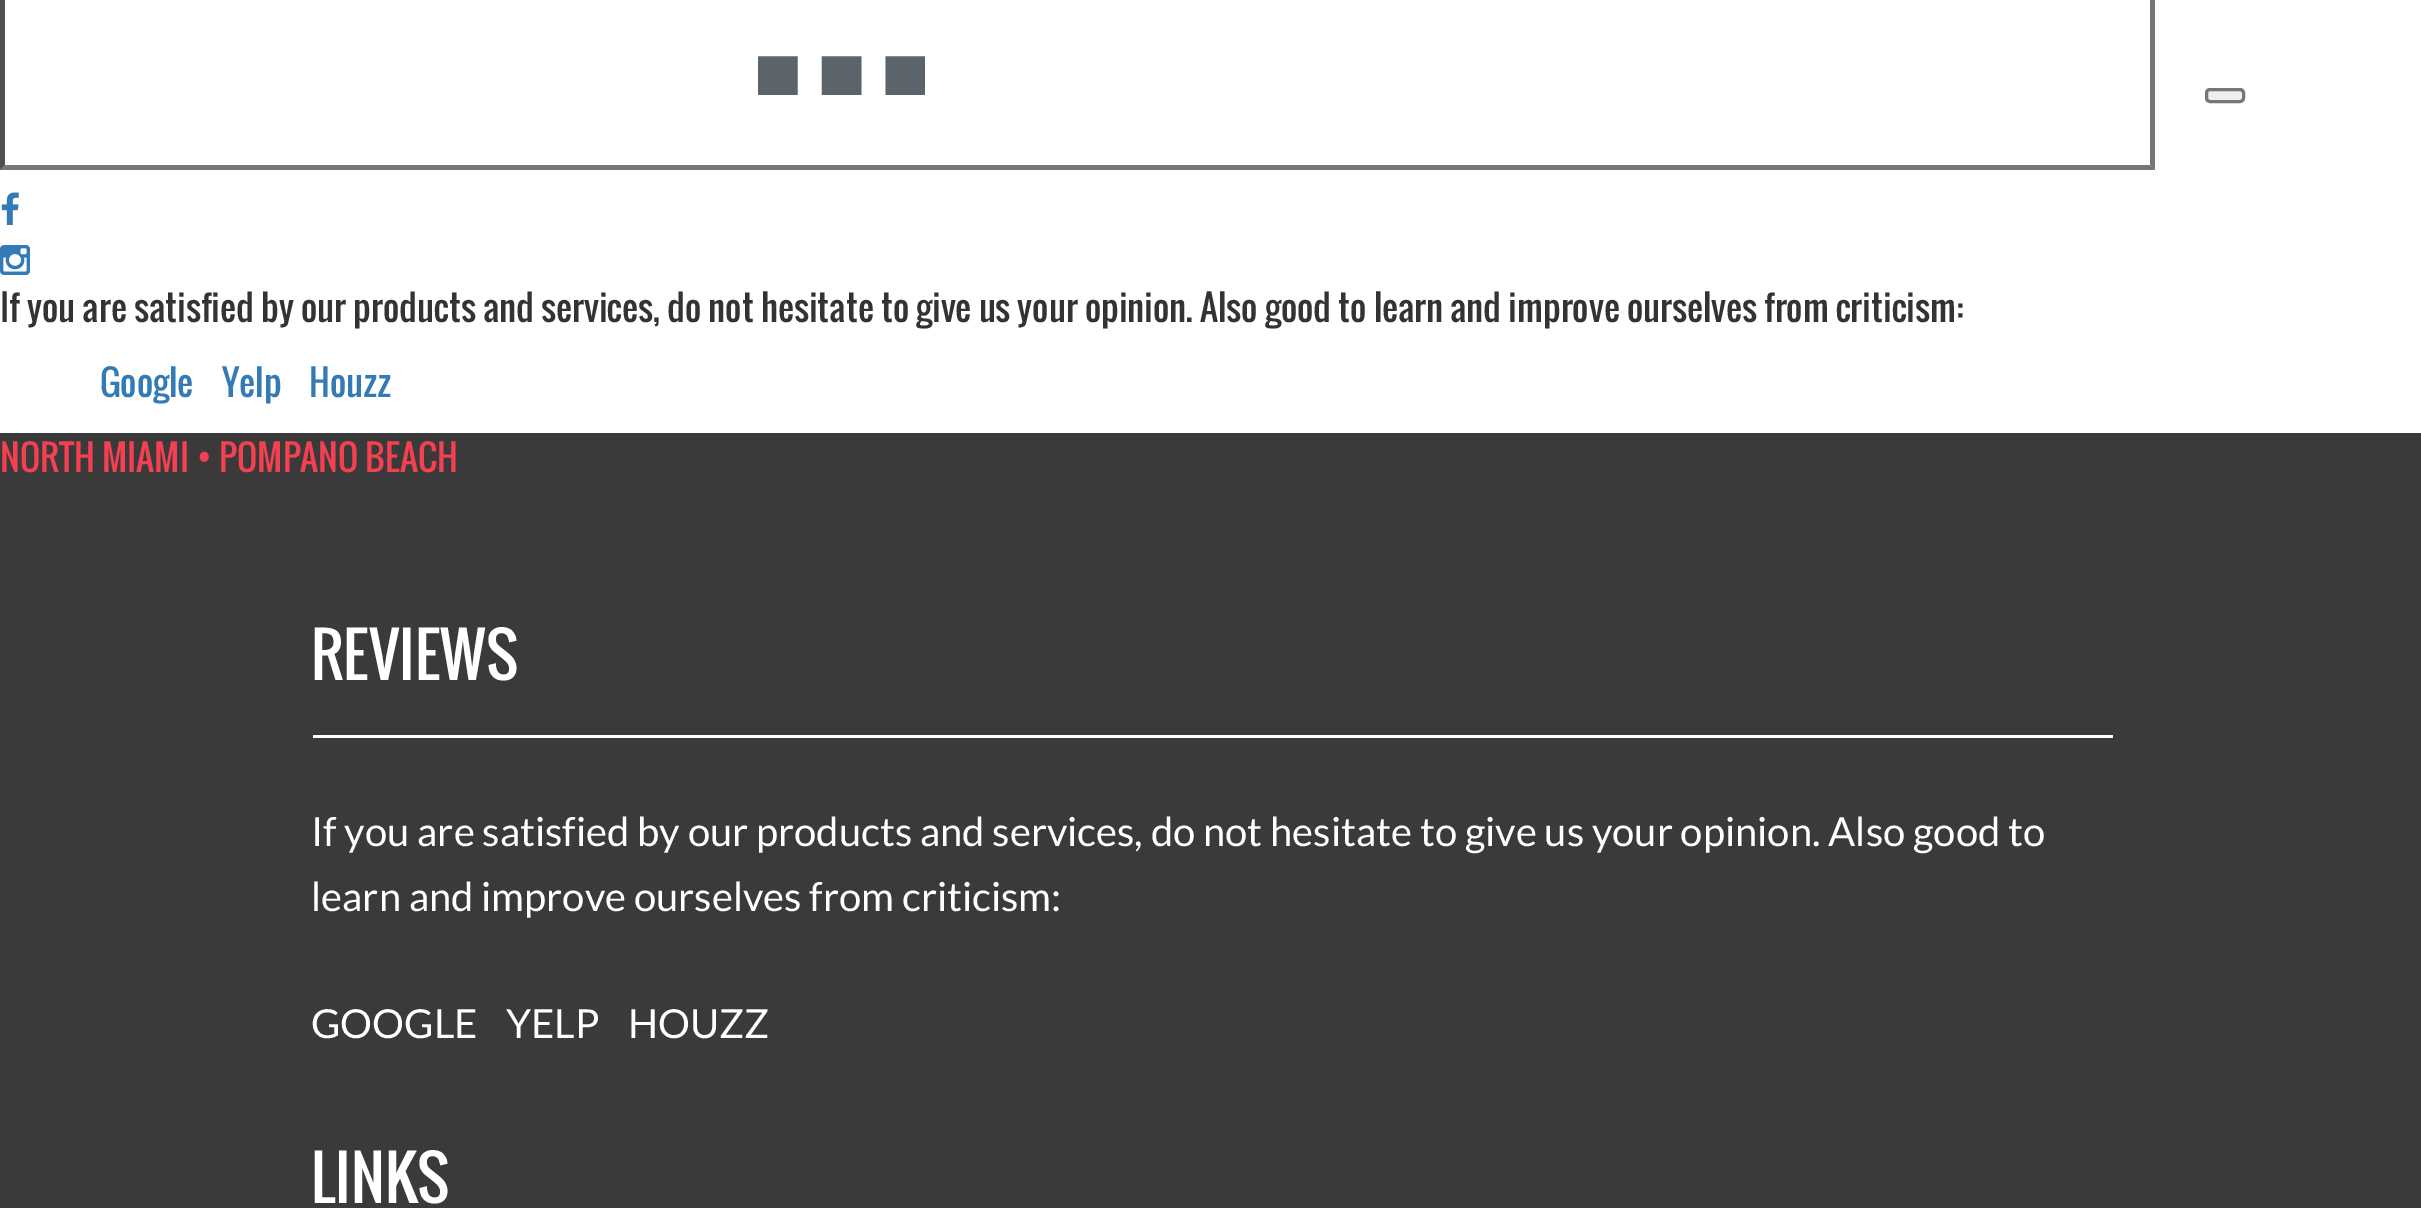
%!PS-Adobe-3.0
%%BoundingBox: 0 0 2421 1208
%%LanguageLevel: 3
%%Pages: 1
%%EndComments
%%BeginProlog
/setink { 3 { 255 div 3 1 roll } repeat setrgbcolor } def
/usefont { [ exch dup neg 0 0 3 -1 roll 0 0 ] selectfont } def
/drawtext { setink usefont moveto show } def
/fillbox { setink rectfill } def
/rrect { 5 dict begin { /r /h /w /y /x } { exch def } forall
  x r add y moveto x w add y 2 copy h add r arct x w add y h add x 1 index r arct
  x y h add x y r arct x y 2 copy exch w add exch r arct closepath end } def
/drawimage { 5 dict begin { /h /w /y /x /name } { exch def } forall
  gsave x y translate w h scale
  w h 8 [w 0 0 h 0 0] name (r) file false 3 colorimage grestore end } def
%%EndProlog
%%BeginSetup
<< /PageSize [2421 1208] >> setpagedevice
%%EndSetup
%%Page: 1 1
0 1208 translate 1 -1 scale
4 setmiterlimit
0 0 2421 1208 255 255 255 fillbox
118 118 118 setink
2155 -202 moveto 2155 170 lineto 2150 165 lineto 2150 -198 lineto closepath fill
2155 170 moveto 0 170 lineto 5 165 lineto 2150 165 lineto closepath fill
79 79 79 setink
0 170 moveto 0 -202 lineto 5 -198 lineto 5 165 lineto closepath fill
(…) 746 95 /Oswald-Bold 250 91 100 107 drawtext
239 239 239 setink
2206.5 89.5 37 12 3.5 rrect gsave fill grestore
118 118 118 setink
3 setlinewidth
stroke
(assets/img1.rgb) 1 192 18 33 drawimage
(assets/img2.rgb) 0 245 30 30 drawimage
(If you are satisfied by our products and services, do not hesitate to give us your opinion. Also good to learn and improve ourselves from criticism:) 0 322 /Oswald-Regular 35 51 51 51 drawtext
(Google) 100 397 /Oswald-Regular 35 51 122 183 drawtext
(Yelp) 222 397 /Oswald-Regular 35 51 122 183 drawtext
(Houzz) 309 397 /Oswald-Regular 35 51 122 183 drawtext
0 433 2421 775 58 58 58 fillbox
(NORTH MIAMI • POMPANO BEACH) 0 472 /Oswald-Regular 35 244 64 81 drawtext
313 735 1800 3 255 255 255 fillbox
(REVIEWS) 311 680 /Oswald-Regular 60 255 255 255 drawtext
(If you are satisfied by our products and services, do not hesitate to give us your opinion. Also good to) 311 846 /Lato-Regular 40 255 255 255 drawtext
(learn and improve ourselves from criticism:) 311 911 /Lato-Regular 40 255 255 255 drawtext
(GOOGLE) 311 1038 /Lato-Regular 40 255 255 255 drawtext
(YELP) 506 1038 /Lato-Regular 40 255 255 255 drawtext
(HOUZZ) 628 1038 /Lato-Regular 40 255 255 255 drawtext
(LINKS) 311 1203 /Oswald-Regular 60 255 255 255 drawtext
showpage
%%EOF
